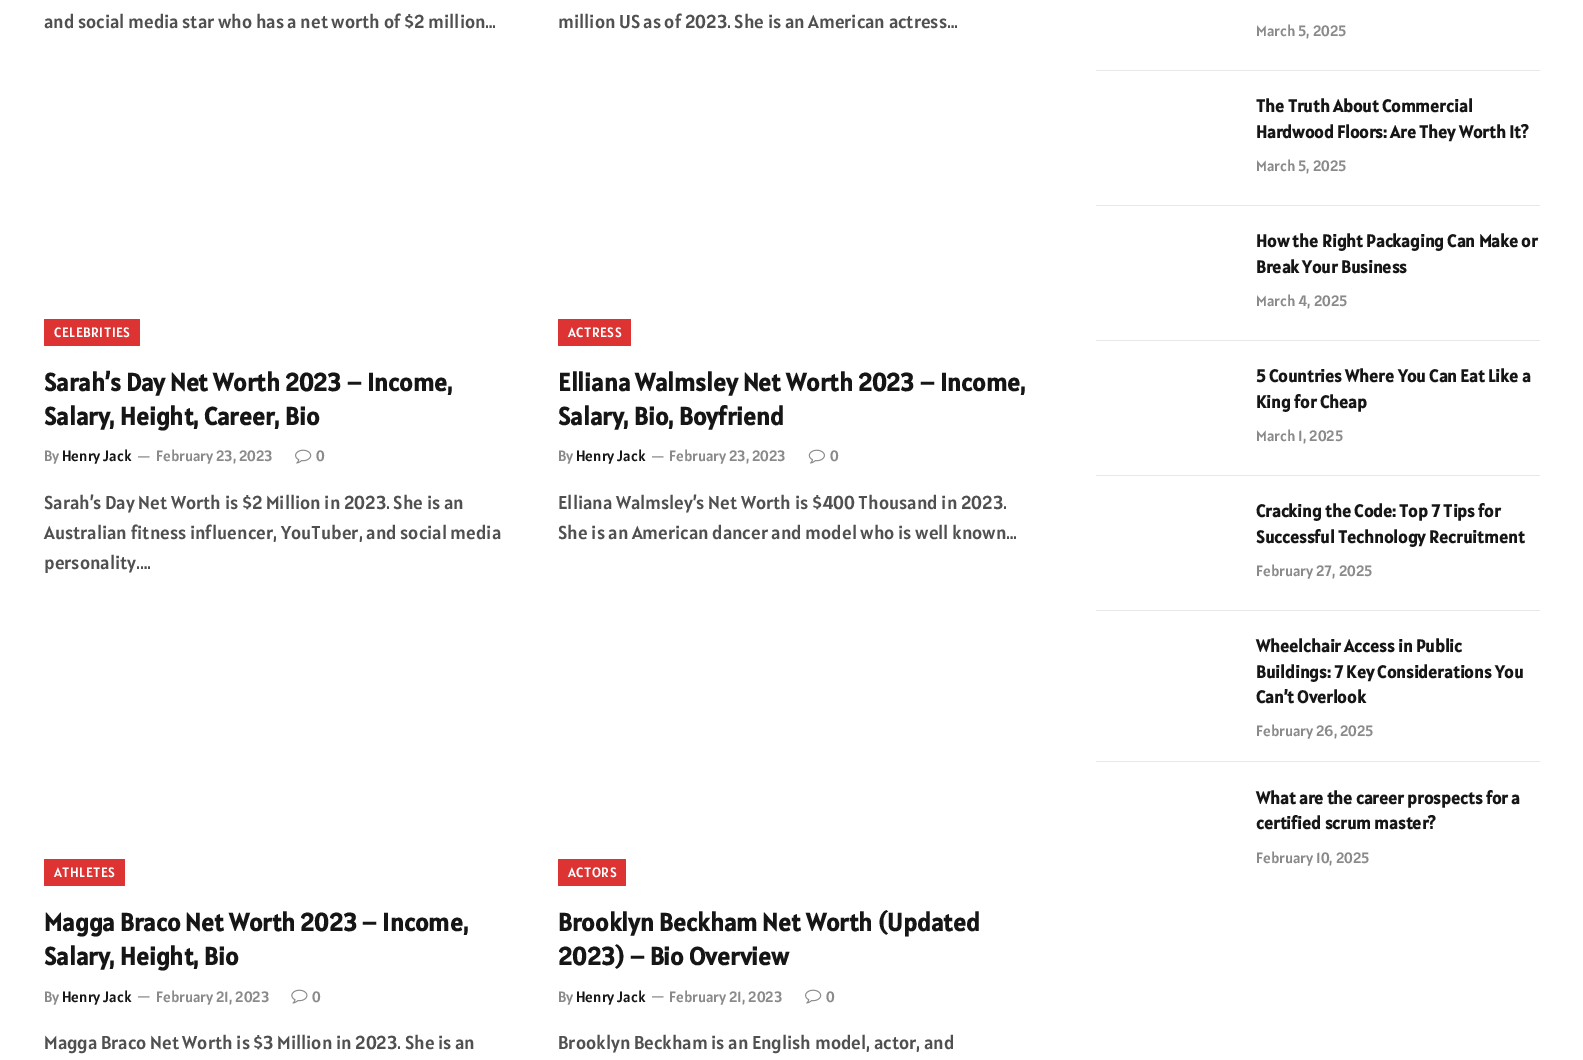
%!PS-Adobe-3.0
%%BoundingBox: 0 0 1583 1060
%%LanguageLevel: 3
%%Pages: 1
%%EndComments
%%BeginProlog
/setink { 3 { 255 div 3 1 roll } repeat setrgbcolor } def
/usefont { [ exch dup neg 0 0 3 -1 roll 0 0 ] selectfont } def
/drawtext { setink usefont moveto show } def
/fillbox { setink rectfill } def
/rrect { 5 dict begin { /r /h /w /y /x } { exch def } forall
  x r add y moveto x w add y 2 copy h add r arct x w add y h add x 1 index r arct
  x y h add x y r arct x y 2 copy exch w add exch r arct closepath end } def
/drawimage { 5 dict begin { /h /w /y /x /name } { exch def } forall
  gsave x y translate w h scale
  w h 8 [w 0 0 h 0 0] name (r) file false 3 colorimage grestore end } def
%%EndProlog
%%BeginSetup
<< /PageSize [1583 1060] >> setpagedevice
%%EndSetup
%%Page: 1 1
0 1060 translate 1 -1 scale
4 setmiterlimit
0 0 1583 1060 255 255 255 fillbox
(and social media star who has a net worth of $2 million…) 44 28 /Alatsi-Regular 18.75 80 80 80 drawtext
(million US as of 2023. She is an American actress…) 558 28 /Alatsi-Regular 18.75 80 80 80 drawtext
221 51 51 setink
44 319 96 27 1 rrect fill
/Alatsi-Regular 13.75 usefont
255 255 255 setink
54 337 moveto 0.5 0 (CELEBRITIES) ashow
(Sarah’s Day Net Worth 2023 – Income,) 44 391 /Alatsi-Bold 25 22 22 22 drawtext
(Salary, Height, Career, Bio) 44 425 /Alatsi-Bold 25 22 22 22 drawtext
(By) 44 461 /Alatsi-Regular 15 138 138 138 drawtext
(Henry Jack) 62 461 /Alatsi-Regular 15 22 22 22 drawtext
(—) 137 461 /Alatsi-Regular 14 138 138 138 drawtext
(February 23, 2023) 156 461 /Alatsi-Regular 15 138 138 138 drawtext
(assets/img1.rgb) 295 449 17 15 drawimage
(0) 316 461 /Alatsi-Regular 15 138 138 138 drawtext
(Sarah’s Day Net Worth is $2 Million in 2023. She is an) 44 509 /Alatsi-Regular 18.75 80 80 80 drawtext
(Australian fitness influencer, YouTuber, and social media) 44 539 /Alatsi-Regular 18.75 80 80 80 drawtext
(personality.…) 44 569 /Alatsi-Regular 18.75 80 80 80 drawtext
221 51 51 setink
558 319 73 27 1 rrect fill
/Alatsi-Regular 13.75 usefont
255 255 255 setink
568 337 moveto 0.5 0 (ACTRESS) ashow
(Elliana Walmsley Net Worth 2023 – Income,) 558 391 /Alatsi-Bold 25 22 22 22 drawtext
(Salary, Bio, Boyfriend) 558 425 /Alatsi-Bold 25 22 22 22 drawtext
(By) 558 461 /Alatsi-Regular 15 138 138 138 drawtext
(Henry Jack) 576 461 /Alatsi-Regular 15 22 22 22 drawtext
(—) 651 461 /Alatsi-Regular 14 138 138 138 drawtext
(February 23, 2023) 669 461 /Alatsi-Regular 15 138 138 138 drawtext
(assets/img2.rgb) 808 449 17 15 drawimage
(0) 830 461 /Alatsi-Regular 15 138 138 138 drawtext
(Elliana Walmsley’s Net Worth is $400 Thousand in 2023.) 558 509 /Alatsi-Regular 18.75 80 80 80 drawtext
(She is an American dancer and model who is well known…) 558 539 /Alatsi-Regular 18.75 80 80 80 drawtext
221 51 51 setink
44 859 81 27 1 rrect fill
/Alatsi-Regular 13.75 usefont
255 255 255 setink
54 877 moveto 0.5 0 (ATHLETES) ashow
(Magga Braco Net Worth 2023 – Income,) 44 931 /Alatsi-Bold 25 22 22 22 drawtext
(Salary, Height, Bio) 44 965 /Alatsi-Bold 25 22 22 22 drawtext
(By) 44 1002 /Alatsi-Regular 15 138 138 138 drawtext
(Henry Jack) 62 1002 /Alatsi-Regular 15 22 22 22 drawtext
(—) 137 1001 /Alatsi-Regular 14 138 138 138 drawtext
(February 21, 2023) 156 1002 /Alatsi-Regular 15 138 138 138 drawtext
(assets/img3.rgb) 291 989 17 15 drawimage
(0) 312 1002 /Alatsi-Regular 15 138 138 138 drawtext
(Magga Braco Net Worth is $3 Million in 2023. She is an) 44 1049 /Alatsi-Regular 18.75 80 80 80 drawtext
221 51 51 setink
558 859 68 27 1 rrect fill
/Alatsi-Regular 13.75 usefont
255 255 255 setink
568 877 moveto 0.5 0 (ACTORS) ashow
(Brooklyn Beckham Net Worth \(Updated) 558 931 /Alatsi-Bold 25 22 22 22 drawtext
(2023\) – Bio Overview) 558 965 /Alatsi-Bold 25 22 22 22 drawtext
(By) 558 1002 /Alatsi-Regular 15 138 138 138 drawtext
(Henry Jack) 576 1002 /Alatsi-Regular 15 22 22 22 drawtext
(—) 651 1001 /Alatsi-Regular 14 138 138 138 drawtext
(February 21, 2023) 669 1002 /Alatsi-Regular 15 138 138 138 drawtext
(assets/img1.rgb) 805 989 17 15 drawimage
(0) 826 1002 /Alatsi-Regular 15 138 138 138 drawtext
(Brooklyn Beckham is an English model, actor, and) 558 1049 /Alatsi-Regular 18.75 80 80 80 drawtext
(March 5, 2025) 1256 36 /Alatsi-Regular 15 138 138 138 drawtext
1096 70 444 1 232 232 232 fillbox
(The Truth About Commercial) 1256 112 /Alatsi-Bold 17.5 22 22 22 drawtext
(Hardwood Floors: Are They Worth It?) 1256 138 /Alatsi-Bold 17.5 22 22 22 drawtext
(March 5, 2025) 1256 171 /Alatsi-Regular 15 138 138 138 drawtext
1096 205 444 1 232 232 232 fillbox
(How the Right Packaging Can Make or) 1256 247 /Alatsi-Bold 17.5 22 22 22 drawtext
(Break Your Business) 1256 273 /Alatsi-Bold 17.5 22 22 22 drawtext
(March 4, 2025) 1256 306 /Alatsi-Regular 15 138 138 138 drawtext
1096 340 444 1 232 232 232 fillbox
(5 Countries Where You Can Eat Like a) 1256 382 /Alatsi-Bold 17.5 22 22 22 drawtext
(King for Cheap) 1256 408 /Alatsi-Bold 17.5 22 22 22 drawtext
(March 1, 2025) 1256 441 /Alatsi-Regular 15 138 138 138 drawtext
1096 475 444 1 232 232 232 fillbox
(Cracking the Code: Top 7 Tips for) 1256 517 /Alatsi-Bold 17.5 22 22 22 drawtext
(Successful Technology Recruitment) 1256 543 /Alatsi-Bold 17.5 22 22 22 drawtext
(February 27, 2025) 1256 576 /Alatsi-Regular 15 138 138 138 drawtext
1096 610 444 1 232 232 232 fillbox
(Wheelchair Access in Public) 1256 652 /Alatsi-Bold 17.5 22 22 22 drawtext
(Buildings: 7 Key Considerations You) 1256 678 /Alatsi-Bold 17.5 22 22 22 drawtext
(Can’t Overlook) 1256 703 /Alatsi-Bold 17.5 22 22 22 drawtext
(February 26, 2025) 1256 736 /Alatsi-Regular 15 138 138 138 drawtext
1096 761 444 1 232 232 232 fillbox
(What are the career prospects for a) 1256 804 /Alatsi-Bold 17.5 22 22 22 drawtext
(certified scrum master?) 1256 829 /Alatsi-Bold 17.5 22 22 22 drawtext
(February 10, 2025) 1256 863 /Alatsi-Regular 15 138 138 138 drawtext
showpage
%%EOF
